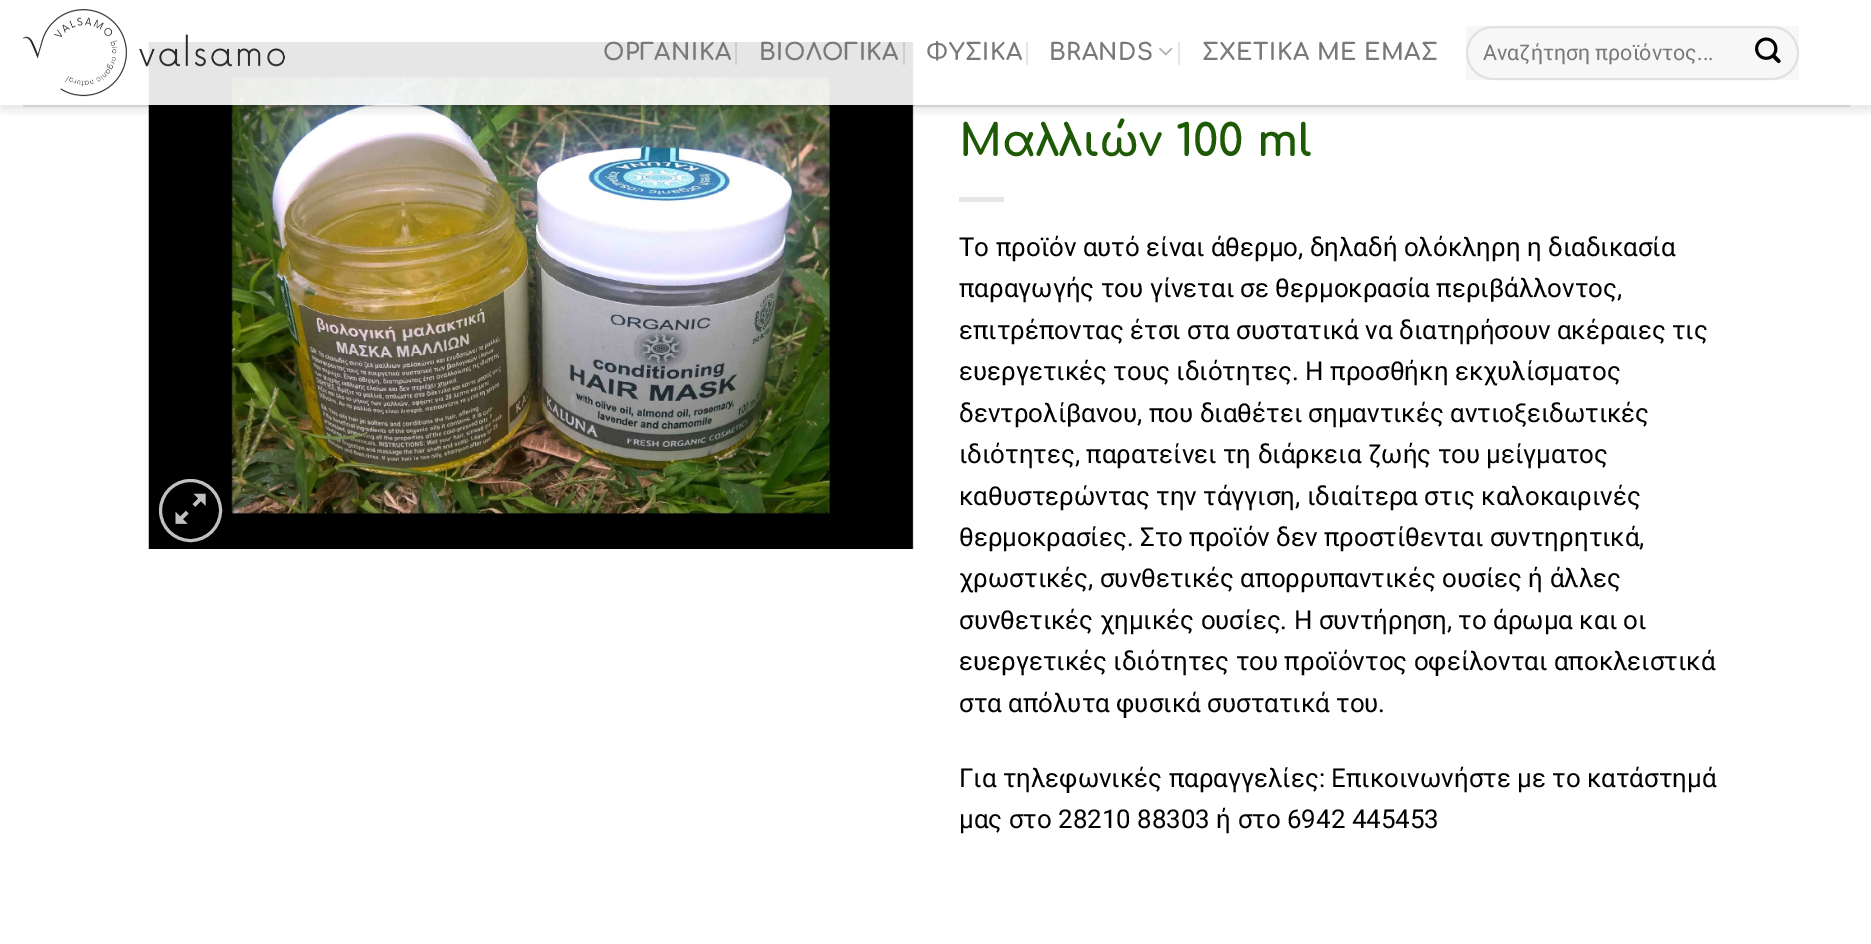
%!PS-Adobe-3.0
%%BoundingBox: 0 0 1871 944
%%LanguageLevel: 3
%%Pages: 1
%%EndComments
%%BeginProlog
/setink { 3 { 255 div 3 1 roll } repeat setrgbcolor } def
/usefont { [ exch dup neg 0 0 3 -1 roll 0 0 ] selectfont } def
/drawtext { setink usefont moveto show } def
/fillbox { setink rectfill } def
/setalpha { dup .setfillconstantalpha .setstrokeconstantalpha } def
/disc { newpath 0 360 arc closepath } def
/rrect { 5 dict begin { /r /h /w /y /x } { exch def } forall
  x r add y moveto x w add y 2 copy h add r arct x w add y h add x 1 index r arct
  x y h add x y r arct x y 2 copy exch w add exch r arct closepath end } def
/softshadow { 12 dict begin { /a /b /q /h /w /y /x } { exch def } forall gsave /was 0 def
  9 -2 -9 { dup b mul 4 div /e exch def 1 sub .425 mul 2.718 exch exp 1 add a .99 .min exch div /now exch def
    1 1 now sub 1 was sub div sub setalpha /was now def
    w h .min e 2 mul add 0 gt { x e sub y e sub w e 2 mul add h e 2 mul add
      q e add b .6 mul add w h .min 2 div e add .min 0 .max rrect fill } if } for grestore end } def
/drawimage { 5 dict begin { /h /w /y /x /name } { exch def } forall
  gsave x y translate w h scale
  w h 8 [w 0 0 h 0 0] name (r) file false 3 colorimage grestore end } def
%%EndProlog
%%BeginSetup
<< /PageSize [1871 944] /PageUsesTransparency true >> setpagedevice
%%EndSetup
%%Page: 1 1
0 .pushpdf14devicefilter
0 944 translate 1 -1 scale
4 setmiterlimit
0 0 1871 944 255 255 255 fillbox
(assets/img4.rgb) 148 42 766 507 drawimage
gsave
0 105 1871 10 rectclip
0 0 0 setink
2 2 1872 105 0 7.5 0.15 softshadow
grestore
0.9 setalpha
148 42 766 63 255 255 255 fillbox
1 setalpha
(assets/img1.rgb) 23 9 262 88 drawimage
/Comfortaa-Bold 23.25 usefont
121 121 121 setink
603 60 moveto 0.5 0 (ΟΡΓΑΝΙΚΑ) ashow
735 42 2 23 207 207 207 fillbox
121 121 121 setink
759 60 moveto 0.5 0 (ΒΙΟΛΟΓΙΚΑ) ashow
903 42 2 23 207 207 207 fillbox
121 121 121 setink
926 60 moveto 0.5 0 (ΦΥΣΙΚΑ) ashow
1026 42 2 23 230 230 230 fillbox
121 121 121 setink
1049 60 moveto 0.5 0 (BRANDS) ashow
(assets/img2.rgb) 1159 47 14 9 drawimage
1178 42 2 23 230 230 230 fillbox
121 121 121 setink
1202 60 moveto 0.5 0 (ΣΧΕΤΙΚΑ ΜΕ ΕΜΑΣ) ashow
0.03 setalpha
1466 26 333 54 0 0 0 fillbox
0.09 setalpha
2 setlinewidth
1467 27 331 52 26 rrect stroke
1 setalpha
(Αναζήτηση προϊόντος...) 1483 60 /Roboto-Regular 21.4 121 121 121 drawtext
(assets/img3.rgb) 1755 37 26 27 drawimage
0.1 setalpha
23 105 1827 2 0 0 0 fillbox
1 setalpha
192 192 192 setink
3 setlinewidth
190.5 510.5 30 disc stroke
(assets/img5.rgb) 175 493 31 31 drawimage
(Μαλλιών 100 ml) 959 156 /Comfortaa-Bold 44 30 90 5 drawtext
959 197 45 5 230 230 230 fillbox
(Το προϊόν αυτό είναι άθερμο, δηλαδή ολόκληρη η διαδικασία) 959 256 /Roboto-Regular 25.9 0 0 0 drawtext
(παραγωγής του γίνεται σε θερμοκρασία περιβάλλοντος,) 959 297 /Roboto-Regular 25.9 0 0 0 drawtext
(επιτρέποντας έτσι στα συστατικά να διατηρήσουν ακέραιες τις) 959 339 /Roboto-Regular 25.9 0 0 0 drawtext
(ευεργετικές τους ιδιότητες. Η προσθήκη εκχυλίσματος) 959 380 /Roboto-Regular 25.9 0 0 0 drawtext
(δεντρολίβανου, που διαθέτει σημαντικές αντιοξειδωτικές) 959 422 /Roboto-Regular 25.9 0 0 0 drawtext
(ιδιότητες, παρατείνει τη διάρκεια ζωής του μείγματος) 959 463 /Roboto-Regular 25.9 0 0 0 drawtext
(καθυστερώντας την τάγγιση, ιδιαίτερα στις καλοκαιρινές) 959 505 /Roboto-Regular 25.9 0 0 0 drawtext
(θερμοκρασίες. Στο προϊόν δεν προστίθενται συντηρητικά,) 959 546 /Roboto-Regular 25.9 0 0 0 drawtext
(χρωστικές, συνθετικές απορρυπαντικές ουσίες ή άλλες) 959 587 /Roboto-Regular 25.9 0 0 0 drawtext
(συνθετικές χημικές ουσίες. Η συντήρηση, το άρωμα και οι) 959 629 /Roboto-Regular 25.9 0 0 0 drawtext
(ευεργετικές ιδιότητες του προϊόντος οφείλονται αποκλειστικά) 959 670 /Roboto-Regular 25.9 0 0 0 drawtext
(στα απόλυτα φυσικά συστατικά του.) 959 712 /Roboto-Regular 25.9 0 0 0 drawtext
(Για τηλεφωνικές παραγγελίες: Επικοινωνήστε με το κατάστημά) 959 787 /Roboto-Regular 25.9 0 0 0 drawtext
(μας στο 28210 88303 ή στο 6942 445453) 959 828 /Roboto-Regular 25.9 0 0 0 drawtext
.poppdf14devicefilter showpage
%%EOF
